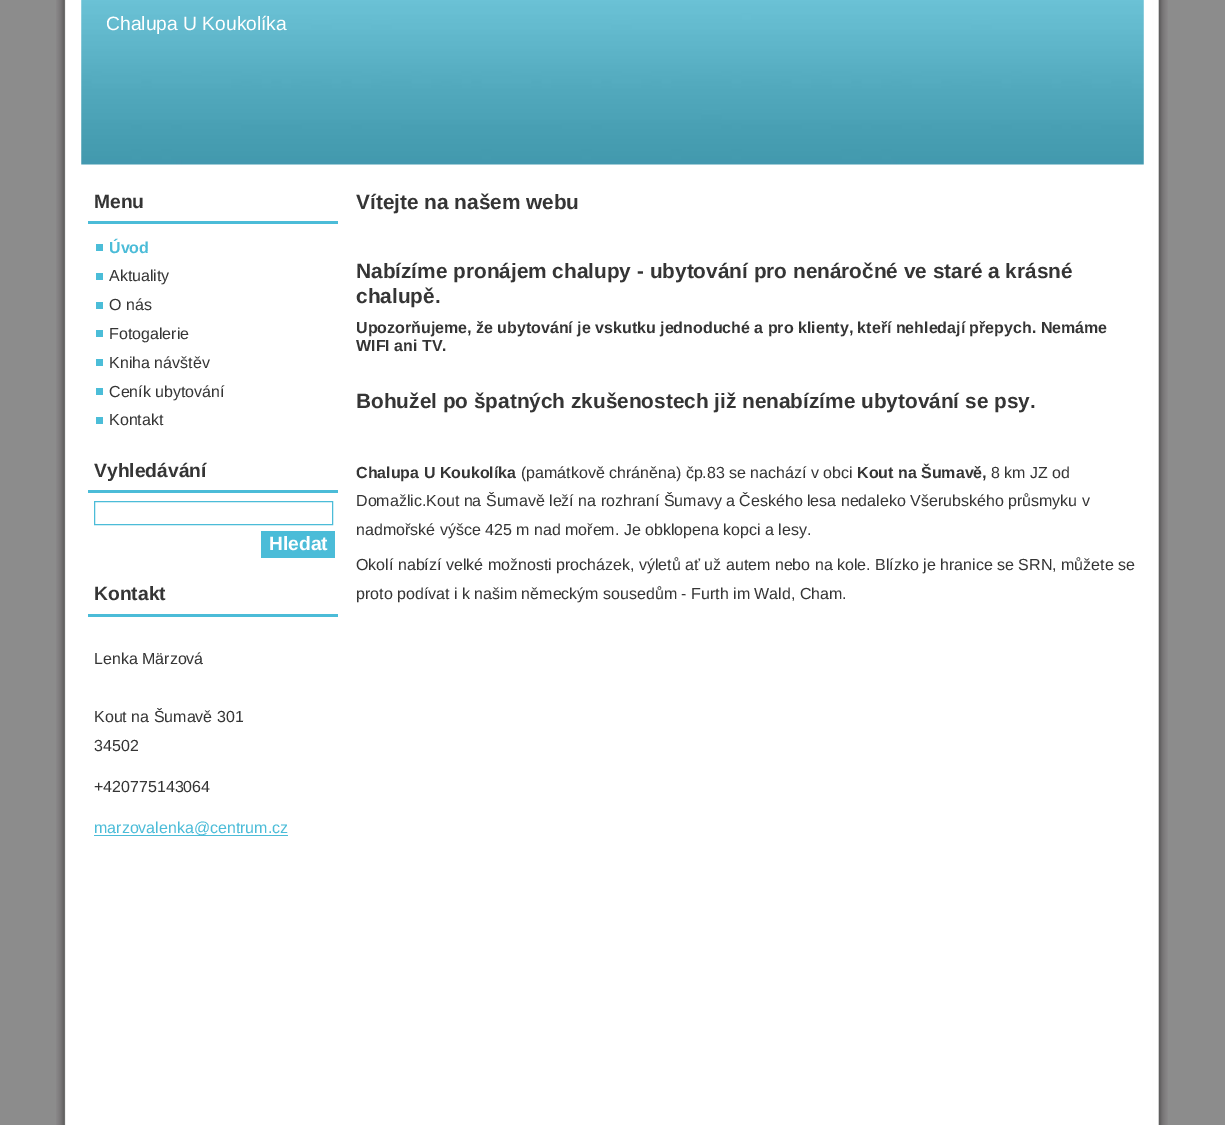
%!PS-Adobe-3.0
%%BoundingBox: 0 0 1225 1125
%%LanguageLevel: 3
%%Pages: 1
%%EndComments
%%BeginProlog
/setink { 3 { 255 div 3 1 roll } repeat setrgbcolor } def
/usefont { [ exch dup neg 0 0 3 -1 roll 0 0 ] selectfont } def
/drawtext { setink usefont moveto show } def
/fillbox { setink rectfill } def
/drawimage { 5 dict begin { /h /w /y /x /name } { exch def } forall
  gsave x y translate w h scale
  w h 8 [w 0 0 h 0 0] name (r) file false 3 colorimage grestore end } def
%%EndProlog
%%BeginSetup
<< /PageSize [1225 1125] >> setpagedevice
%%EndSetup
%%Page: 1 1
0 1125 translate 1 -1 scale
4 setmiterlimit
0 0 1225 1125 140 140 140 fillbox
(assets/img1.rgb) 56 0 1112 975 drawimage
(assets/img2.rgb) 56 975 1112 150 drawimage
(assets/img3.rgb) 81 0 1063 165 drawimage
(Chalupa U Koukolíka) 106 30 /LiberationSans-Regular 19.25 255 255 255 drawtext
88 221 250 3 75 188 216 fillbox
(Menu) 94 208 /LiberationSans-Bold 19.25 53 53 53 drawtext
(Úvod) 109 253 /LiberationSans-Bold 16 75 188 216 drawtext
96 244 7 7 75 189 216 fillbox
(Aktuality) 109 281 /LiberationSans-Regular 16 53 53 53 drawtext
96 273 7 7 75 189 216 fillbox
(O nás) 109 310 /LiberationSans-Regular 16 53 53 53 drawtext
96 302 7 7 75 189 216 fillbox
(Fotogalerie) 109 339 /LiberationSans-Regular 16 53 53 53 drawtext
96 330 7 7 75 189 216 fillbox
(Kniha návštěv) 109 368 /LiberationSans-Regular 16 53 53 53 drawtext
96 359 7 7 75 189 216 fillbox
(Ceník ubytování) 109 397 /LiberationSans-Regular 16 53 53 53 drawtext
96 388 7 7 75 189 216 fillbox
(Kontakt) 109 425 /LiberationSans-Regular 16 53 53 53 drawtext
96 417 7 7 75 189 216 fillbox
88 490 250 3 75 188 216 fillbox
(Vyhledávání) 94 477 /LiberationSans-Bold 19.25 53 53 53 drawtext
75 188 216 setink
94.5 501.5 238 23 rectstroke
261 531 74 27 75 188 216 fillbox
(Hledat) 269 550 /LiberationSans-Bold 19.25 255 255 255 drawtext
88 614 250 3 75 188 216 fillbox
(Kontakt) 94 600 /LiberationSans-Bold 19.25 53 53 53 drawtext
(Lenka Märzová) 94 664 /LiberationSans-Regular 16 53 53 53 drawtext
(Kout na Šumavě 301) 94 722 /LiberationSans-Regular 16 53 53 53 drawtext
(34502) 94 751 /LiberationSans-Regular 16 53 53 53 drawtext
(+420775143064) 94 792 /LiberationSans-Regular 16 53 53 53 drawtext
94 835 194 1 75 188 216 fillbox
(marzovalenka@centrum.cz) 94 833 /LiberationSans-Regular 16 75 188 216 drawtext
(Vítejte na našem webu) 356 209 /LiberationSans-Bold 20.8 53 53 53 drawtext
(Nabízíme pronájem chalupy - ubytování pro nenáročné ve staré a krásné) 356 278 /LiberationSans-Bold 20.8 53 53 53 drawtext
(chalupě.) 356 303 /LiberationSans-Bold 20.8 53 53 53 drawtext
(Upozorňujeme, že ubytování je vskutku jednoduché a pro klienty, kteří nehledají přepych. Nemáme) 356 333 /LiberationSans-Bold 16 53 53 53 drawtext
(WIFI ani TV.) 356 351 /LiberationSans-Bold 16 53 53 53 drawtext
(Bohužel po špatných zkušenostech již nenabízíme ubytování se psy.) 356 408 /LiberationSans-Bold 20.8 53 53 53 drawtext
(Chalupa U Koukolíka) 356 478 /LiberationSans-Bold 16 53 53 53 drawtext
(\(památkově chráněna\) čp.83 se nachází v obci) 521 478 /LiberationSans-Regular 16 53 53 53 drawtext
(Kout na Šumavě,) 857 478 /LiberationSans-Bold 16 53 53 53 drawtext
(8 km JZ od) 991 478 /LiberationSans-Regular 16 53 53 53 drawtext
(Domažlic.Kout na Šumavě leží na rozhraní Šumavy a Českého lesa nedaleko Všerubského průsmyku v) 356 506 /LiberationSans-Regular 16 53 53 53 drawtext
(nadmořské výšce 425 m nad mořem. Je obklopena kopci a lesy.) 356 535 /LiberationSans-Regular 16 53 53 53 drawtext
(Okolí nabízí velké možnosti procházek, výletů ať už autem nebo na kole. Blízko je hranice se SRN, můžete se) 356 570 /LiberationSans-Regular 16 53 53 53 drawtext
(proto podívat i k našim německým sousedům - Furth im Wald, Cham.) 356 599 /LiberationSans-Regular 16 53 53 53 drawtext
showpage
%%EOF
